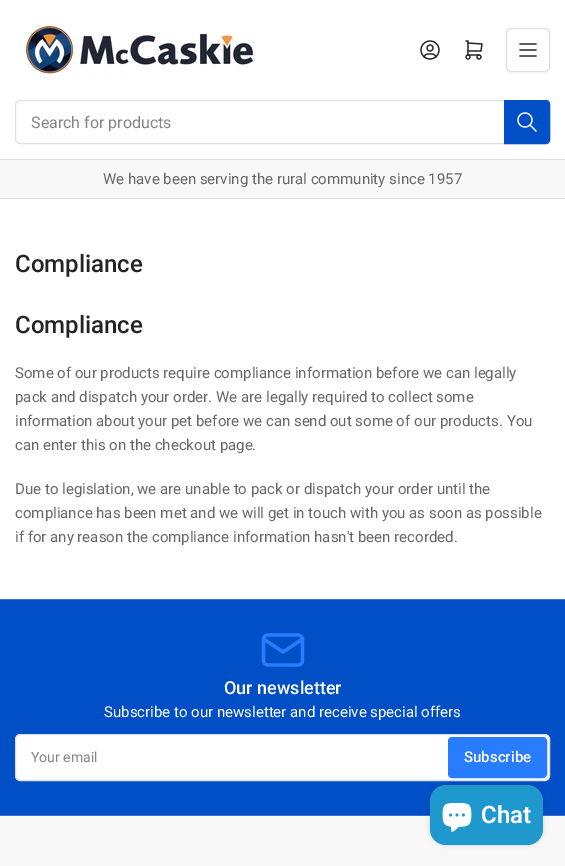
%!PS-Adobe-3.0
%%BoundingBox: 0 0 565 866
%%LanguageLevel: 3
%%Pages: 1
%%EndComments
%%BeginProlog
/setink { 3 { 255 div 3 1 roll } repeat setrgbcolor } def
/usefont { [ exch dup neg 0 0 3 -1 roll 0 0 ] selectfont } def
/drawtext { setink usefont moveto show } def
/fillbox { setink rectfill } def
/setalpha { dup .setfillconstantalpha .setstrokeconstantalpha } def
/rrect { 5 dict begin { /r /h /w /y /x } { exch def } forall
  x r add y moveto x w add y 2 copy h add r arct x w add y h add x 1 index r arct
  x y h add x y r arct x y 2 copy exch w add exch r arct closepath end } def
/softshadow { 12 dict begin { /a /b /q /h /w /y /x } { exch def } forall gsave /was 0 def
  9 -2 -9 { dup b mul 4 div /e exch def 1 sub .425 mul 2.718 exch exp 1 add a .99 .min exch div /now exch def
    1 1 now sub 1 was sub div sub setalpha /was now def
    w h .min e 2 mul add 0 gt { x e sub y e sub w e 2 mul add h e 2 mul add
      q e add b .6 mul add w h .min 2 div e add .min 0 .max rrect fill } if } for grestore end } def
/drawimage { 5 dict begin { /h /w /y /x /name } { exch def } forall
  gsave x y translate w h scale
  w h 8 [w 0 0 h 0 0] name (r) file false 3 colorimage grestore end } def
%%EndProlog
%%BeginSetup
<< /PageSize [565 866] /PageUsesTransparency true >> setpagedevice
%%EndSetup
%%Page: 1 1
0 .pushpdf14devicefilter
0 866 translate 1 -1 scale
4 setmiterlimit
0 0 565 866 255 255 255 fillbox
0 159 565 1 223 223 223 fillbox
(assets/img1.rgb) 23 23 232 56 drawimage
(assets/img2.rgb) 420 40 20 20 drawimage
(assets/img3.rgb) 465 40 18 20 drawimage
249 249 249 setink
506 67 moveto 506 75 510 74 517 74 curveto 539 74 lineto 546 74 550 75 550 67 curveto 550 70 548 72 545 72 curveto 511 72 lineto 508 72 506 70 506 67 curveto closepath fill
223 223 223 setink
506.5 28.5 43 43 4.5 rrect stroke
(assets/img4.rgb) 519 43 18 14 drawimage
15.5 100.5 534 43 4.5 rrect stroke
(Search for products) 31 128 /Roboto-Regular 16 133 133 133 drawtext
0 79 199 setink
504.5 100.5 moveto 546 100.5 lineto 548 100.5 549.5 102 549.5 104 curveto 549.5 140 lineto 549.5 142 548 143.5 546 143.5 curveto 504.5 143.5 lineto closepath stroke
505 101 moveto 546 101 lineto 547.5 101 549 102.5 549 104 curveto 549 140 lineto 549 141.5 547.5 143 546 143 curveto 505 143 lineto closepath fill
(assets/img5.rgb) 517 112 20 20 drawimage
0 160 565 38 248 248 248 fillbox
0 198 565 1 223 223 223 fillbox
(We have been serving the rural community since 1957) 103 184 /Roboto-Regular 15 103 103 103 drawtext
(Compliance) 15 272 /Roboto-Medium 24 35 35 35 drawtext
(Compliance) 15 333 /Roboto-Medium 24 35 35 35 drawtext
(Some of our products require compliance information before we can legally) 15 378 /Roboto-Regular 15 103 103 103 drawtext
(pack and dispatch your order. We are legally required to collect some) 15 402 /Roboto-Regular 15 103 103 103 drawtext
(information about your pet before we can send out some of our products. You) 15 426 /Roboto-Regular 15 103 103 103 drawtext
(can enter this on the checkout page.) 15 450 /Roboto-Regular 15 103 103 103 drawtext
(Due to legislation, we are unable to pack or dispatch your order until the) 15 494 /Roboto-Regular 15 103 103 103 drawtext
(compliance has been met and we will get in touch with you as soon as possible) 15 518 /Roboto-Regular 15 103 103 103 drawtext
(if for any reason the compliance information hasn't been recorded.) 15 542 /Roboto-Regular 15 103 103 103 drawtext
0 600 565 215 0 79 199 fillbox
0 599 565 1 51 114 210 fillbox
0 815 565 1 51 114 210 fillbox
40 125 255 setink
3.2 setlinewidth
1 setlinecap
1 setlinejoin
263.5 639 moveto 263.5 637 265.5 635 268 635 curveto 298 635 lineto 300.5 635 302.5 637 302.5 639 curveto 302.5 661 lineto 302.5 663 300.5 665 298 665 curveto 268 665 lineto 265.5 665 263.5 663 263.5 661 curveto closepath 263.5 639 moveto 283 652 lineto 302.5 639 lineto stroke
(Our newsletter) 224 694 /Roboto-Medium 18 255 255 255 drawtext
(Subscribe to our newsletter and receive special offers) 104 717 /Roboto-Regular 15 255 255 255 drawtext
15.5 734.5 534 46 4.5 rrect gsave fill grestore
223 223 223 setink
1 setlinewidth
0 setlinecap
0 setlinejoin
stroke
(Your email) 31 762 /Roboto-Regular 14 133 133 133 drawtext
40 125 255 setink
448.5 737.5 98 40 3.5 rrect stroke
449 738 97 39 3 rrect fill
(Subscribe) 464 762 /Roboto-Medium 15 255 255 255 drawtext
0 816 565 50 248 248 248 fillbox
0 0 0 setink
430 785 113 60 16 2.5 0.15 softshadow
31 153 205 setink
430 785 113 60 16 rrect fill
(assets/img6.rgb) 442 803 30 29 drawimage
(Chat) 481 823 /Roboto-SemiBold 24 255 255 255 drawtext
.poppdf14devicefilter showpage
%%EOF
